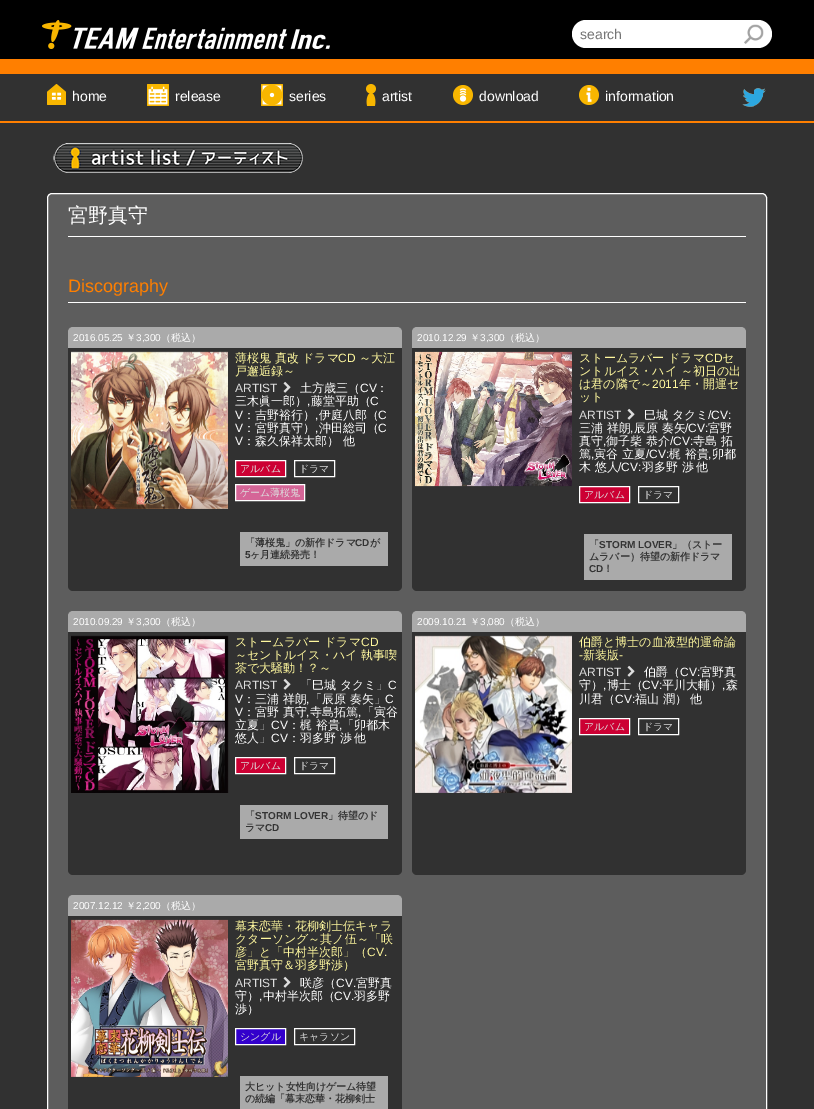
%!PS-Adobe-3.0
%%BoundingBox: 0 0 814 1109
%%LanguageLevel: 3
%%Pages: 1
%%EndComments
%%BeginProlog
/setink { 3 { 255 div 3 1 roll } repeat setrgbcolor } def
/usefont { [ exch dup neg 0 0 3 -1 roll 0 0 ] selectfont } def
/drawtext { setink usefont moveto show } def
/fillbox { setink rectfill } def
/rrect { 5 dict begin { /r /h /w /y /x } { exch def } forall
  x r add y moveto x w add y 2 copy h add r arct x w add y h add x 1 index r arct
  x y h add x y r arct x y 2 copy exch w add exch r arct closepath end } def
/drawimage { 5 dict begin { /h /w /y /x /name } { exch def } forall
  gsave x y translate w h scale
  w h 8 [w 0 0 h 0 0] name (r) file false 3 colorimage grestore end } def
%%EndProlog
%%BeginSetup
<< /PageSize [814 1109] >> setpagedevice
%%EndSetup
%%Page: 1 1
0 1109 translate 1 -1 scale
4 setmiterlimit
0 0 814 1109 49 49 49 fillbox
0 0 814 59 0 0 0 fillbox
0 59 814 15 255 127 0 fillbox
(assets/img1.rgb) 42 20 288 29 drawimage
255 255 255 setink
572 20 200 28 14 rrect fill
(search) 580 39 /LiberationSans-Regular 14 117 117 117 drawtext
(assets/img2.rgb) 744 24 20 20 drawimage
0 121 814 2 255 127 0 fillbox
(assets/img3.rgb) 47 84 19 21 drawimage
(home) 72 101 /LiberationSans-Regular 14 255 255 255 drawtext
(assets/img4.rgb) 147 84 22 22 drawimage
(release) 175 101 /LiberationSans-Regular 14 255 255 255 drawtext
(assets/img5.rgb) 261 84 22 22 drawimage
(series) 289 101 /LiberationSans-Regular 14 255 255 255 drawtext
(assets/img6.rgb) 366 84 10 22 drawimage
(artist) 382 101 /LiberationSans-Regular 14 255 255 255 drawtext
(assets/img7.rgb) 453 85 20 20 drawimage
(download) 479 101 /LiberationSans-Regular 14 255 255 255 drawtext
(assets/img8.rgb) 579 85 20 20 drawimage
(information) 605 101 /LiberationSans-Regular 14 255 255 255 drawtext
(assets/img9.rgb) 742 88 24 19 drawimage
(assets/img10.rgb) 53 143 250 30 drawimage
93 93 93 setink
47.5 193.5 719 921 4.5 rrect gsave fill grestore
255 255 255 setink
stroke
(宮野真守) 68 222 /WenQuanYiZenHei-Medium 20 255 255 255 drawtext
68 236 678 1 255 255 255 fillbox
68 302 678 1 255 255 255 fillbox
(Discography) 68 292 /LiberationSans-Regular 18 255 127 0 drawtext
49 49 49 setink
68 327 334 264 5 rrect fill
170 170 170 setink
73 327 moveto 397 327 lineto 400 327 402 329 402 332 curveto 402 348 lineto 68 348 lineto 68 332 lineto 68 329 70 327 73 327 curveto closepath fill
(2016.05.25) 73 341 /LiberationSans-Regular 10 255 255 255 drawtext
(￥) 126 341 /WenQuanYiZenHei-Medium 10 255 255 255 drawtext
(3,300) 136 341 /LiberationSans-Regular 10 255 255 255 drawtext
(（税込）) 161 341 /WenQuanYiZenHei-Medium 10 255 255 255 drawtext
(assets/img11.rgb) 71 351 157 158 drawimage
(薄桜鬼 真改 ドラマ) 235 362 /WenQuanYiZenHei-Medium 12 255 248 158 drawtext
(CD) 338 362 /LiberationSans-Regular 12 255 248 158 drawtext
(～大江) 359 362 /WenQuanYiZenHei-Medium 12 255 248 158 drawtext
(戸邂逅録～) 235 375 /WenQuanYiZenHei-Medium 12 255 248 158 drawtext
(ARTIST) 235 392 /LiberationSans-Regular 12 221 221 221 drawtext
(assets/img12.rgb) 283 381 8 12 drawimage
(土方歳三（) 300 392 /WenQuanYiZenHei-Medium 12 255 255 255 drawtext
(CV) 360 392 /LiberationSans-Regular 12 255 255 255 drawtext
(：) 376 392 /WenQuanYiZenHei-Medium 12 255 255 255 drawtext
(三木眞一郎） 藤堂平助（) 235 405 /WenQuanYiZenHei-Medium 12 255 255 255 drawtext
(C) 370 405 /LiberationSans-Regular 12 255 255 255 drawtext
(,) 307 405 /LiberationSans-Regular 12 255 255 255 drawtext
(V) 235 419 /LiberationSans-Regular 12 255 255 255 drawtext
(：吉野裕行） 伊庭八郎（) 243 419 /WenQuanYiZenHei-Medium 12 255 255 255 drawtext
(C) 378 419 /LiberationSans-Regular 12 255 255 255 drawtext
(,) 315 419 /LiberationSans-Regular 12 255 255 255 drawtext
(V) 235 432 /LiberationSans-Regular 12 255 255 255 drawtext
(：宮野真守） 沖田総司（) 243 432 /WenQuanYiZenHei-Medium 12 255 255 255 drawtext
(C) 378 432 /LiberationSans-Regular 12 255 255 255 drawtext
(,) 315 432 /LiberationSans-Regular 12 255 255 255 drawtext
(V) 235 445 /LiberationSans-Regular 12 255 255 255 drawtext
(：森久保祥太郎） 他) 243 445 /WenQuanYiZenHei-Medium 12 255 255 255 drawtext
204 0 51 setink
235.5 460.5 moveto 285.5 460.5 lineto 285.5 476.5 lineto 235.5 476.5 lineto closepath gsave fill grestore
255 255 255 setink
stroke
(アルバム) 240 472 /WenQuanYiZenHei-Medium 10 221 221 221 drawtext
255 255 255 setink
294.5 460.5 40 16 rectstroke
(ドラマ) 299 472 /WenQuanYiZenHei-Medium 10 221 221 221 drawtext
213 101 151 setink
235.5 484.5 moveto 304.5 484.5 lineto 304.5 500.5 lineto 235.5 500.5 lineto closepath gsave fill grestore
255 255 255 setink
stroke
(ゲーム薄桜鬼) 240 496 /WenQuanYiZenHei-Medium 10 221 221 221 drawtext
240 532 148 34 170 170 170 fillbox
(「薄桜鬼」の新作ドラマ) 245 546 /WenQuanYiZenHei-Bold 10 51 51 51 drawtext
(CD) 355 546 /LiberationSans-Bold 10 51 51 51 drawtext
(が) 370 546 /WenQuanYiZenHei-Bold 10 51 51 51 drawtext
(5) 245 558 /LiberationSans-Bold 10 51 51 51 drawtext
(ヶ月連続発売！) 250 558 /WenQuanYiZenHei-Bold 10 51 51 51 drawtext
49 49 49 setink
412 327 334 264 5 rrect fill
170 170 170 setink
417 327 moveto 741 327 lineto 744 327 746 329 746 332 curveto 746 348 lineto 412 348 lineto 412 332 lineto 412 329 414 327 417 327 curveto closepath fill
(2010.12.29) 417 341 /LiberationSans-Regular 10 255 255 255 drawtext
(￥) 470 341 /WenQuanYiZenHei-Medium 10 255 255 255 drawtext
(3,300) 480 341 /LiberationSans-Regular 10 255 255 255 drawtext
(（税込）) 505 341 /WenQuanYiZenHei-Medium 10 255 255 255 drawtext
(assets/img13.rgb) 415 351 157 136 drawimage
(ストームラバー ドラマ) 579 362 /WenQuanYiZenHei-Medium 12 255 248 158 drawtext
(CD) 705 362 /LiberationSans-Regular 12 255 248 158 drawtext
(セ) 722 362 /WenQuanYiZenHei-Medium 12 255 248 158 drawtext
(ントルイス・ハイ ～初日の出) 579 375 /WenQuanYiZenHei-Medium 12 255 248 158 drawtext
(は君の隣で～) 579 388 /WenQuanYiZenHei-Medium 12 255 248 158 drawtext
(2011) 652 388 /LiberationSans-Regular 12 255 248 158 drawtext
(年・開運セ) 679 388 /WenQuanYiZenHei-Medium 12 255 248 158 drawtext
(ット) 579 401 /WenQuanYiZenHei-Medium 12 255 248 158 drawtext
(ARTIST) 579 419 /LiberationSans-Regular 12 221 221 221 drawtext
(assets/img12.rgb) 627 408 8 12 drawimage
(巳城 タクミ) 644 419 /WenQuanYiZenHei-Medium 12 255 255 255 drawtext
(/CV:) 708 419 /LiberationSans-Regular 12 255 255 255 drawtext
(三浦 祥朗 辰原 奏矢) 579 432 /WenQuanYiZenHei-Medium 12 255 255 255 drawtext
(/CV:) 685 432 /LiberationSans-Regular 12 255 255 255 drawtext
(宮野) 708 432 /WenQuanYiZenHei-Medium 12 255 255 255 drawtext
(,) 630 432 /LiberationSans-Regular 12 255 255 255 drawtext
(真守) 579 445 /WenQuanYiZenHei-Medium 12 255 255 255 drawtext
(,) 603 445 /LiberationSans-Regular 12 255 255 255 drawtext
(御子柴 恭介) 606 445 /WenQuanYiZenHei-Medium 12 255 255 255 drawtext
(/CV:) 670 445 /LiberationSans-Regular 12 255 255 255 drawtext
(寺島 拓) 693 445 /WenQuanYiZenHei-Medium 12 255 255 255 drawtext
(篤) 579 458 /WenQuanYiZenHei-Medium 12 255 255 255 drawtext
(,) 591 458 /LiberationSans-Regular 12 255 255 255 drawtext
(寅谷 立夏) 594 458 /WenQuanYiZenHei-Medium 12 255 255 255 drawtext
(/CV:) 646 458 /LiberationSans-Regular 12 255 255 255 drawtext
(梶 裕貴) 669 458 /WenQuanYiZenHei-Medium 12 255 255 255 drawtext
(,) 708 458 /LiberationSans-Regular 12 255 255 255 drawtext
(卯都) 712 458 /WenQuanYiZenHei-Medium 12 255 255 255 drawtext
(木 悠人) 579 471 /WenQuanYiZenHei-Medium 12 255 255 255 drawtext
(/CV:) 618 471 /LiberationSans-Regular 12 255 255 255 drawtext
(羽多野 渉) 642 471 /WenQuanYiZenHei-Medium 12 255 255 255 drawtext
(他) 696 471 /WenQuanYiZenHei-Medium 12 255 255 255 drawtext
204 0 51 setink
579.5 486.5 moveto 629.5 486.5 lineto 629.5 502.5 lineto 579.5 502.5 lineto closepath gsave fill grestore
255 255 255 setink
stroke
(アルバム) 584 498 /WenQuanYiZenHei-Medium 10 221 221 221 drawtext
255 255 255 setink
638.5 486.5 40 16 rectstroke
(ドラマ) 643 498 /WenQuanYiZenHei-Medium 10 221 221 221 drawtext
584 534 148 46 170 170 170 fillbox
(「) 589 548 /WenQuanYiZenHei-Bold 10 51 51 51 drawtext
(STORM LOVER) 599 548 /LiberationSans-Bold 10 51 51 51 drawtext
(」（ストー) 672 548 /WenQuanYiZenHei-Bold 10 51 51 51 drawtext
(ムラバー）待望の新作ドラマ) 589 560 /WenQuanYiZenHei-Bold 10 51 51 51 drawtext
(CD) 589 572 /LiberationSans-Bold 10 51 51 51 drawtext
(！) 603 572 /WenQuanYiZenHei-Bold 10 51 51 51 drawtext
49 49 49 setink
68 611 334 264 5 rrect fill
170 170 170 setink
73 611 moveto 397 611 lineto 400 611 402 613 402 616 curveto 402 632 lineto 68 632 lineto 68 616 lineto 68 613 70 611 73 611 curveto closepath fill
(2010.09.29) 73 625 /LiberationSans-Regular 10 255 255 255 drawtext
(￥) 126 625 /WenQuanYiZenHei-Medium 10 255 255 255 drawtext
(3,300) 136 625 /LiberationSans-Regular 10 255 255 255 drawtext
(（税込）) 161 625 /WenQuanYiZenHei-Medium 10 255 255 255 drawtext
(assets/img14.rgb) 71 635 158 158 drawimage
(ストームラバー ドラマ) 235 646 /WenQuanYiZenHei-Medium 12 255 248 158 drawtext
(CD) 361 646 /LiberationSans-Regular 12 255 248 158 drawtext
(～セントルイス・ハイ 執事喫) 235 659 /WenQuanYiZenHei-Medium 12 255 248 158 drawtext
(茶で大騒動！？～) 235 672 /WenQuanYiZenHei-Medium 12 255 248 158 drawtext
(ARTIST) 235 689 /LiberationSans-Regular 12 221 221 221 drawtext
(assets/img12.rgb) 283 678 8 12 drawimage
(「巳城 タクミ」) 300 689 /WenQuanYiZenHei-Medium 12 255 255 255 drawtext
(C) 388 689 /LiberationSans-Regular 12 255 255 255 drawtext
(V) 235 703 /LiberationSans-Regular 12 255 255 255 drawtext
(：三浦 祥朗 「辰原 奏矢」) 243 703 /WenQuanYiZenHei-Medium 12 255 255 255 drawtext
(C) 385 703 /LiberationSans-Regular 12 255 255 255 drawtext
(,) 306 703 /LiberationSans-Regular 12 255 255 255 drawtext
(V) 235 716 /LiberationSans-Regular 12 255 255 255 drawtext
(：宮野 真守) 243 716 /WenQuanYiZenHei-Medium 12 255 255 255 drawtext
(,) 306 716 /LiberationSans-Regular 12 255 255 255 drawtext
(寺島拓篤 「寅谷) 310 716 /WenQuanYiZenHei-Medium 12 255 255 255 drawtext
(,) 358 716 /LiberationSans-Regular 12 255 255 255 drawtext
(立夏」) 235 729 /WenQuanYiZenHei-Medium 12 255 255 255 drawtext
(CV) 271 729 /LiberationSans-Regular 12 255 255 255 drawtext
(：梶 裕貴) 288 729 /WenQuanYiZenHei-Medium 12 255 255 255 drawtext
(,) 339 729 /LiberationSans-Regular 12 255 255 255 drawtext
(「卯都木) 342 729 /WenQuanYiZenHei-Medium 12 255 255 255 drawtext
(悠人」) 235 742 /WenQuanYiZenHei-Medium 12 255 255 255 drawtext
(CV) 271 742 /LiberationSans-Regular 12 255 255 255 drawtext
(：羽多野 渉) 288 742 /WenQuanYiZenHei-Medium 12 255 255 255 drawtext
(他) 354 742 /WenQuanYiZenHei-Medium 12 255 255 255 drawtext
204 0 51 setink
235.5 757.5 moveto 285.5 757.5 lineto 285.5 773.5 lineto 235.5 773.5 lineto closepath gsave fill grestore
255 255 255 setink
stroke
(アルバム) 240 769 /WenQuanYiZenHei-Medium 10 221 221 221 drawtext
255 255 255 setink
294.5 757.5 40 16 rectstroke
(ドラマ) 299 769 /WenQuanYiZenHei-Medium 10 221 221 221 drawtext
240 805 148 34 170 170 170 fillbox
(「) 245 819 /WenQuanYiZenHei-Bold 10 51 51 51 drawtext
(STORM LOVER) 255 819 /LiberationSans-Bold 10 51 51 51 drawtext
(」待望のド) 328 819 /WenQuanYiZenHei-Bold 10 51 51 51 drawtext
(ラマ) 245 831 /WenQuanYiZenHei-Bold 10 51 51 51 drawtext
(CD) 265 831 /LiberationSans-Bold 10 51 51 51 drawtext
49 49 49 setink
412 611 334 264 5 rrect fill
170 170 170 setink
417 611 moveto 741 611 lineto 744 611 746 613 746 616 curveto 746 632 lineto 412 632 lineto 412 616 lineto 412 613 414 611 417 611 curveto closepath fill
(2009.10.21) 417 625 /LiberationSans-Regular 10 255 255 255 drawtext
(￥) 470 625 /WenQuanYiZenHei-Medium 10 255 255 255 drawtext
(3,080) 480 625 /LiberationSans-Regular 10 255 255 255 drawtext
(（税込）) 505 625 /WenQuanYiZenHei-Medium 10 255 255 255 drawtext
(assets/img15.rgb) 415 635 157 158 drawimage
(伯爵と博士の血液型的運命論) 579 646 /WenQuanYiZenHei-Medium 12 255 248 158 drawtext
(-) 579 659 /LiberationSans-Regular 12 255 248 158 drawtext
(新装版) 583 659 /WenQuanYiZenHei-Medium 12 255 248 158 drawtext
(-) 619 659 /LiberationSans-Regular 12 255 248 158 drawtext
(ARTIST) 579 676 /LiberationSans-Regular 12 221 221 221 drawtext
(assets/img12.rgb) 627 665 8 12 drawimage
(伯爵（) 644 676 /WenQuanYiZenHei-Medium 12 255 255 255 drawtext
(CV:) 680 676 /LiberationSans-Regular 12 255 255 255 drawtext
(宮野真) 700 676 /WenQuanYiZenHei-Medium 12 255 255 255 drawtext
(守） 博士（) 579 689 /WenQuanYiZenHei-Medium 12 255 255 255 drawtext
(CV:) 642 689 /LiberationSans-Regular 12 255 255 255 drawtext
(平川大輔） 森) 662 689 /WenQuanYiZenHei-Medium 12 255 255 255 drawtext
(,) 603 689 /LiberationSans-Regular 12 255 255 255 drawtext
(,) 722 689 /LiberationSans-Regular 12 255 255 255 drawtext
(川君（) 579 703 /WenQuanYiZenHei-Medium 12 255 255 255 drawtext
(CV:) 615 703 /LiberationSans-Regular 12 255 255 255 drawtext
(福山 潤）) 635 703 /WenQuanYiZenHei-Medium 12 255 255 255 drawtext
(他) 690 703 /WenQuanYiZenHei-Medium 12 255 255 255 drawtext
204 0 51 setink
579.5 718.5 moveto 629.5 718.5 lineto 629.5 734.5 lineto 579.5 734.5 lineto closepath gsave fill grestore
255 255 255 setink
stroke
(アルバム) 584 730 /WenQuanYiZenHei-Medium 10 221 221 221 drawtext
255 255 255 setink
638.5 718.5 40 16 rectstroke
(ドラマ) 643 730 /WenQuanYiZenHei-Medium 10 221 221 221 drawtext
49 49 49 setink
68 895 334 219 5 rrect fill
170 170 170 setink
73 895 moveto 397 895 lineto 400 895 402 897 402 900 curveto 402 916 lineto 68 916 lineto 68 900 lineto 68 897 70 895 73 895 curveto closepath fill
(2007.12.12) 73 909 /LiberationSans-Regular 10 255 255 255 drawtext
(￥) 126 909 /WenQuanYiZenHei-Medium 10 255 255 255 drawtext
(2,200) 136 909 /LiberationSans-Regular 10 255 255 255 drawtext
(（税込）) 161 909 /WenQuanYiZenHei-Medium 10 255 255 255 drawtext
(assets/img16.rgb) 71 919 157 158 drawimage
(幕末恋華・花柳剣士伝キャラ) 235 930 /WenQuanYiZenHei-Medium 12 255 248 158 drawtext
(クターソング～其ノ伍～「咲) 235 943 /WenQuanYiZenHei-Medium 12 255 248 158 drawtext
(彦」と「中村半次郎」（) 235 956 /WenQuanYiZenHei-Medium 12 255 248 158 drawtext
(CV.) 367 956 /LiberationSans-Regular 12 255 248 158 drawtext
(宮野真守＆羽多野渉）) 235 969 /WenQuanYiZenHei-Medium 12 255 248 158 drawtext
(ARTIST) 235 987 /LiberationSans-Regular 12 221 221 221 drawtext
(assets/img12.rgb) 283 976 8 12 drawimage
(咲彦（) 300 987 /WenQuanYiZenHei-Medium 12 255 255 255 drawtext
(CV.) 336 987 /LiberationSans-Regular 12 255 255 255 drawtext
(宮野真) 356 987 /WenQuanYiZenHei-Medium 12 255 255 255 drawtext
(守） 中村半次郎（) 235 1000 /WenQuanYiZenHei-Medium 12 255 255 255 drawtext
(CV.) 334 1000 /LiberationSans-Regular 12 255 255 255 drawtext
(羽多野) 354 1000 /WenQuanYiZenHei-Medium 12 255 255 255 drawtext
(,) 259 1000 /LiberationSans-Regular 12 255 255 255 drawtext
(渉）) 235 1013 /WenQuanYiZenHei-Medium 12 255 255 255 drawtext
51 0 204 setink
235.5 1028.5 moveto 285.5 1028.5 lineto 285.5 1044.5 lineto 235.5 1044.5 lineto closepath gsave fill grestore
255 255 255 setink
stroke
(シングル) 240 1040 /WenQuanYiZenHei-Medium 10 221 221 221 drawtext
255 255 255 setink
294.5 1028.5 60 16 rectstroke
(キャラソン) 299 1040 /WenQuanYiZenHei-Medium 10 221 221 221 drawtext
240 1076 148 33 170 170 170 fillbox
(大ヒット女性向けゲーム待望) 245 1090 /WenQuanYiZenHei-Bold 10 51 51 51 drawtext
(の続編「幕末恋華・花柳剣士) 245 1102 /WenQuanYiZenHei-Bold 10 51 51 51 drawtext
showpage
%%EOF
